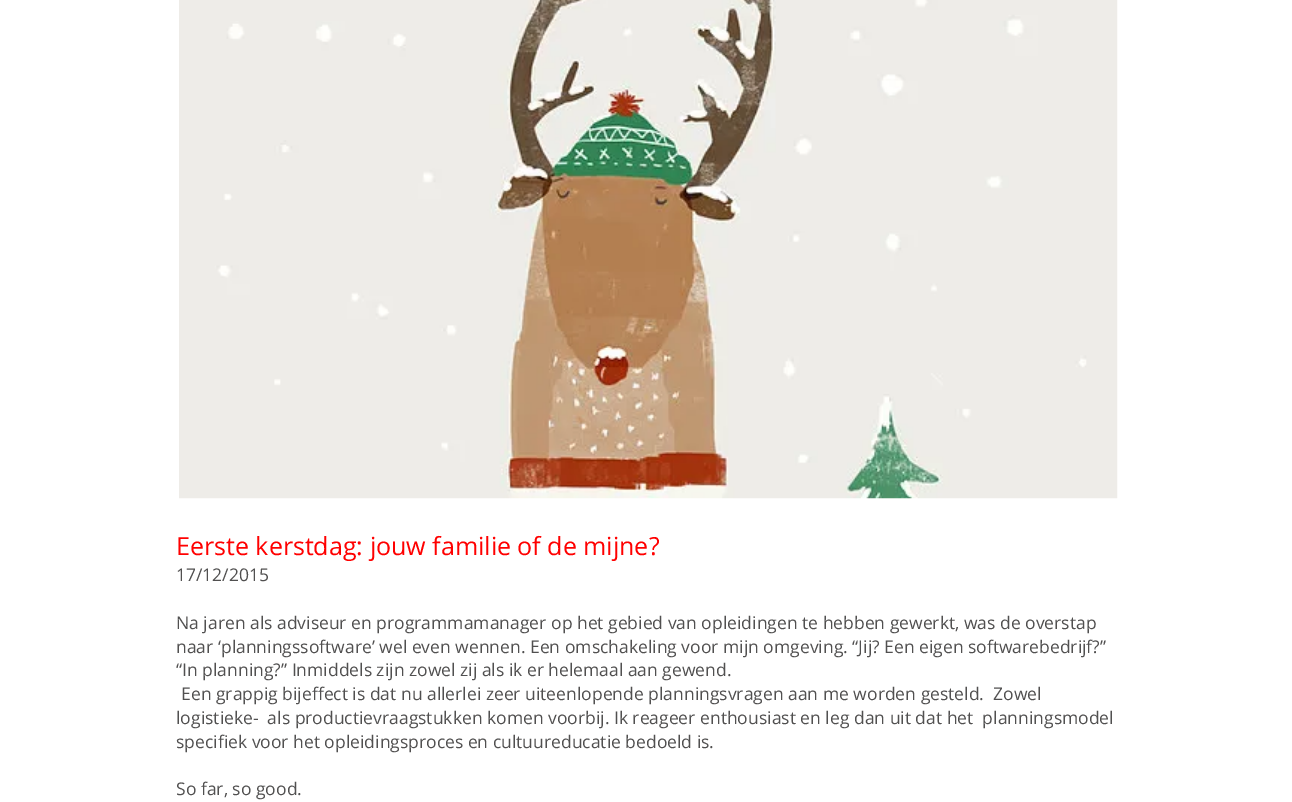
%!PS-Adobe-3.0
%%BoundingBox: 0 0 1292 802
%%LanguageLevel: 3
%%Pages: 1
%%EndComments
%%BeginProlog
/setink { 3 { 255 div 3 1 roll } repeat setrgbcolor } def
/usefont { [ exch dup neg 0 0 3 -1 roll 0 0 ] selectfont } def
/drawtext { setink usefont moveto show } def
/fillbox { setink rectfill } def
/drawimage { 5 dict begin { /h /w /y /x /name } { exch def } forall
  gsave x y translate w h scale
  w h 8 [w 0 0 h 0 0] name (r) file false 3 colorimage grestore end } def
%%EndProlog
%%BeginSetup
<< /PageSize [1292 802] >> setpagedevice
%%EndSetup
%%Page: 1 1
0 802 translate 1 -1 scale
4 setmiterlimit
0 0 1292 802 255 255 255 fillbox
(assets/img1.rgb) 179 0 939 499 drawimage
(Eerste kerstdag: jouw familie of de mijne?) 176 555 /OpenSans-Regular 25 255 0 0 drawtext
(17/12/2015) 176 581 /OpenSans-Regular 17.5 81 80 80 drawtext
(Na jaren als adviseur en programmamanager op het gebied van opleidingen te hebben gewerkt, was de overstap) 176 629 /OpenSans-Regular 17.5 81 80 80 drawtext
(naar ‘planningssoftware’ wel even wennen. Een omschakeling voor mijn omgeving. “Jij? Een eigen softwarebedrijf?”) 176 653 /OpenSans-Regular 17.5 81 80 80 drawtext
(“In planning?” Inmiddels zijn zowel zij als ik er helemaal aan gewend.) 176 676 /OpenSans-Regular 17.5 81 80 80 drawtext
(Een grappig bijeffect is dat nu allerlei zeer uiteenlopende planningsvragen aan me worden gesteld.  Zowel) 181 700 /OpenSans-Regular 17.5 81 80 80 drawtext
(logistieke-  als productievraagstukken komen voorbij. Ik reageer enthousiast en leg dan uit dat het  planningsmodel) 176 724 /OpenSans-Regular 17.5 81 80 80 drawtext
(specifiek voor het opleidingsproces en cultuureducatie bedoeld is.) 176 748 /OpenSans-Regular 17.5 81 80 80 drawtext
(So far, so good.) 176 795 /OpenSans-Regular 17.5 81 80 80 drawtext
showpage
%%EOF
